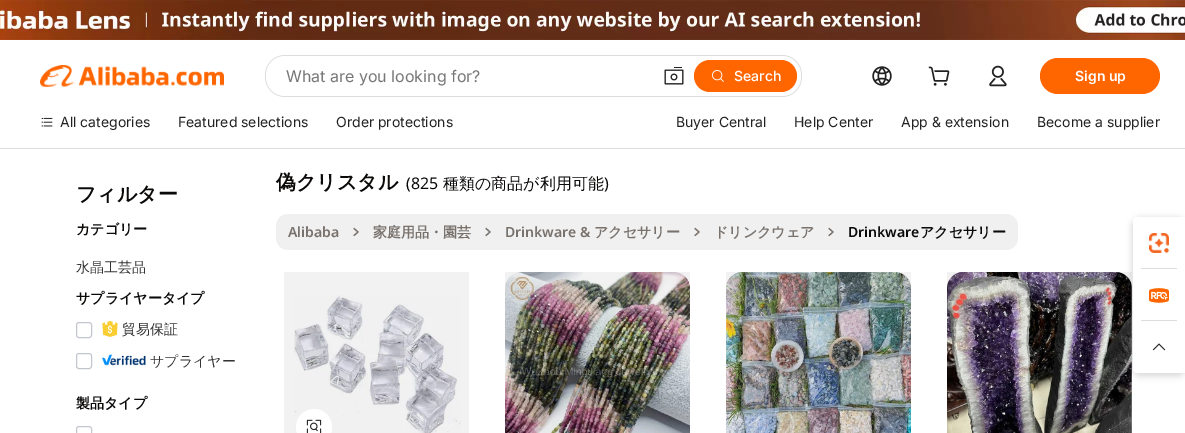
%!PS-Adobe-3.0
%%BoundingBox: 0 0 1185 433
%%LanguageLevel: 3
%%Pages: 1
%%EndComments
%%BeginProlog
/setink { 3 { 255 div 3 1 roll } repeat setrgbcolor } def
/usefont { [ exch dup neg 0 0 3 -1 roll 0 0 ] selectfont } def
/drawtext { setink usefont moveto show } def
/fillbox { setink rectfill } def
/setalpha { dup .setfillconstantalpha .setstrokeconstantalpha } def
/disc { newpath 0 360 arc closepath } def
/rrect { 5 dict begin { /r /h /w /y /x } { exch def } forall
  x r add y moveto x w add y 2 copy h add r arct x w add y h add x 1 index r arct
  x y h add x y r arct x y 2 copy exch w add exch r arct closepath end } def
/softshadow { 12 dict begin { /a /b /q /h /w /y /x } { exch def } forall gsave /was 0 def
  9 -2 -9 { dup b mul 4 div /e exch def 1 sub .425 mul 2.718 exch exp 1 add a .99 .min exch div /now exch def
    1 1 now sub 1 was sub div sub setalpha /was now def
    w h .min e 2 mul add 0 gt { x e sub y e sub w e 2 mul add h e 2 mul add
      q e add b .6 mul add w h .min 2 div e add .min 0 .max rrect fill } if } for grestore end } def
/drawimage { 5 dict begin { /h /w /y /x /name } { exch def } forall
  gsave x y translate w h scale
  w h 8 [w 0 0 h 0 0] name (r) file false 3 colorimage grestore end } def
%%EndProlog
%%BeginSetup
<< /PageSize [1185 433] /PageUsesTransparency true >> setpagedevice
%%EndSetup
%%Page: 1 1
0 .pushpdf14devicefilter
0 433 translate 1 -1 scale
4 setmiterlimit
0 0 1185 433 255 255 255 fillbox
(assets/img1.rgb) 0 0 1185 40 drawimage
0 148 1185 1 221 221 221 fillbox
(assets/img2.rgb) 40 65 184 22 drawimage
265 55 537 42 20 rrect fill
255 255 255 setink
266 56 535 40 19 rrect fill
(What are you looking for?) 286 82 /Inter-Regular 16 118 118 118 drawtext
(assets/img3.rgb) 664 67 20 18 drawimage
255 102 0 setink
694 60 103 32 16 rrect fill
(assets/img4.rgb) 712 70 12 12 drawimage
(Search) 734 81 /Inter-Medium 14 255 255 255 drawtext
(assets/img5.rgb) 872 66 20 20 drawimage
(assets/img6.rgb) 928 66 22 20 drawimage
(assets/img7.rgb) 989 65 18 22 drawimage
255 102 0 setink
1040 58 120 36 18 rrect fill
(Sign up) 1075 81 /Inter-SemiBold 14 255 255 255 drawtext
(assets/img8.rgb) 41 117 12 10 drawimage
(All categories) 60 127 /Inter-Regular 14 34 34 34 drawtext
(Featured selections) 178 127 /Inter-Regular 14 34 34 34 drawtext
(Order protections) 336 127 /Inter-Regular 14 34 34 34 drawtext
(Buyer Central) 676 127 /Inter-Regular 14 34 34 34 drawtext
(Help Center) 794 127 /Inter-Regular 14 34 34 34 drawtext
(App & extension) 901 127 /Inter-Regular 14 34 34 34 drawtext
(Become a supplier) 1037 127 /Inter-Regular 14 34 34 34 drawtext
(フィルター) 76 201 /WenQuanYiZenHei-Bold 20 12 10 9 drawtext
(カテゴリー) 76 234 /WenQuanYiZenHei-Bold 14 12 10 9 drawtext
(水晶工芸品) 76 272 /WenQuanYiZenHei-Medium 14 51 51 51 drawtext
(サプライヤータイプ) 76 303 /WenQuanYiZenHei-Bold 14 12 10 9 drawtext
196 198 207 setink
76.5 322.5 15 15 2.5 rrect stroke
(assets/img9.rgb) 102 321 16 16 drawimage
(貿易保証) 122 334 /WenQuanYiZenHei-Medium 14 51 51 51 drawtext
196 198 207 setink
76.5 353.5 15 15 2.5 rrect stroke
(assets/img10.rgb) 102 354 44 12 drawimage
(サプライヤー) 150 366 /WenQuanYiZenHei-Medium 14 51 51 51 drawtext
(製品タイプ) 76 408 /WenQuanYiZenHei-Bold 14 12 10 9 drawtext
196 198 207 setink
76.5 426.5 15 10 2.5 rrect stroke
(偽クリスタル) 276 189 /WenQuanYiZenHei-Bold 20 12 10 9 drawtext
(\(825) 406 189 /NotoSans-Regular 16 12 10 9 drawtext
(種類の商品が利用可能) 443 189 /WenQuanYiZenHei-Medium 16 12 10 9 drawtext
(\)) 604 189 /NotoSans-Regular 16 12 10 9 drawtext
240 240 240 setink
276 214 742 36 12 rrect fill
(Alibaba) 288 237 /NotoSans-SemiBold 14 120 113 108 drawtext
1.2 setlinewidth
1 setlinecap
1 setlinejoin
354 235.5 moveto 358 232 lineto 354 228.5 lineto stroke
(家庭用品・園芸) 373 237 /WenQuanYiZenHei-Bold 14 120 113 108 drawtext
486 235.5 moveto 490 232 lineto 486 228.5 lineto stroke
(Drinkware &) 505 237 /NotoSans-SemiBold 14 120 113 108 drawtext
(アクセサリー) 594 237 /WenQuanYiZenHei-Bold 14 120 113 108 drawtext
695 235.5 moveto 699 232 lineto 695 228.5 lineto stroke
(ドリンクウェア) 714 237 /WenQuanYiZenHei-Bold 14 120 113 108 drawtext
829 235.5 moveto 833 232 lineto 829 228.5 lineto stroke
(Drinkware) 848 237 /NotoSans-SemiBold 14 12 10 9 drawtext
(アクセサリー) 920 237 /WenQuanYiZenHei-Bold 14 12 10 9 drawtext
(assets/img11.rgb) 294 295 167 138 drawimage
0.05 setalpha
284 272 185 161 0 0 0 fillbox
1 setalpha
255 255 255 setink
314 427 18 disc fill
(assets/img12.rgb) 306 419 16 14 drawimage
(assets/img13.rgb) 505 272 185 161 drawimage
0.05 setalpha
505 272 185 161 0 0 0 fillbox
1 setalpha
(assets/img14.rgb) 726 272 185 161 drawimage
0.05 setalpha
726 272 185 161 0 0 0 fillbox
1 setalpha
(assets/img15.rgb) 947 272 185 161 drawimage
0.05 setalpha
947 272 185 161 0 0 0 fillbox
1 setalpha
1131 217 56 160 10 3 0.12 softshadow
255 255 255 setink
1141 217 moveto 1185 217 lineto 1185 373 lineto 1141 373 lineto 1136.5 373 1133 369.5 1133 365 curveto 1133 225 lineto 1133 220.5 1136.5 217 1141 217 curveto closepath fill
1133 217 52 52 4 rrect fill
(assets/img16.rgb) 1149 233 20 20 drawimage
1141 268 36 1 221 221 221 fillbox
(assets/img17.rgb) 1149 288 20 15 drawimage
1141 320 36 1 221 221 221 fillbox
255 255 255 setink
1133 321 52 52 4 rrect fill
(assets/img18.rgb) 1152 343 14 8 drawimage
.poppdf14devicefilter showpage
%%EOF
